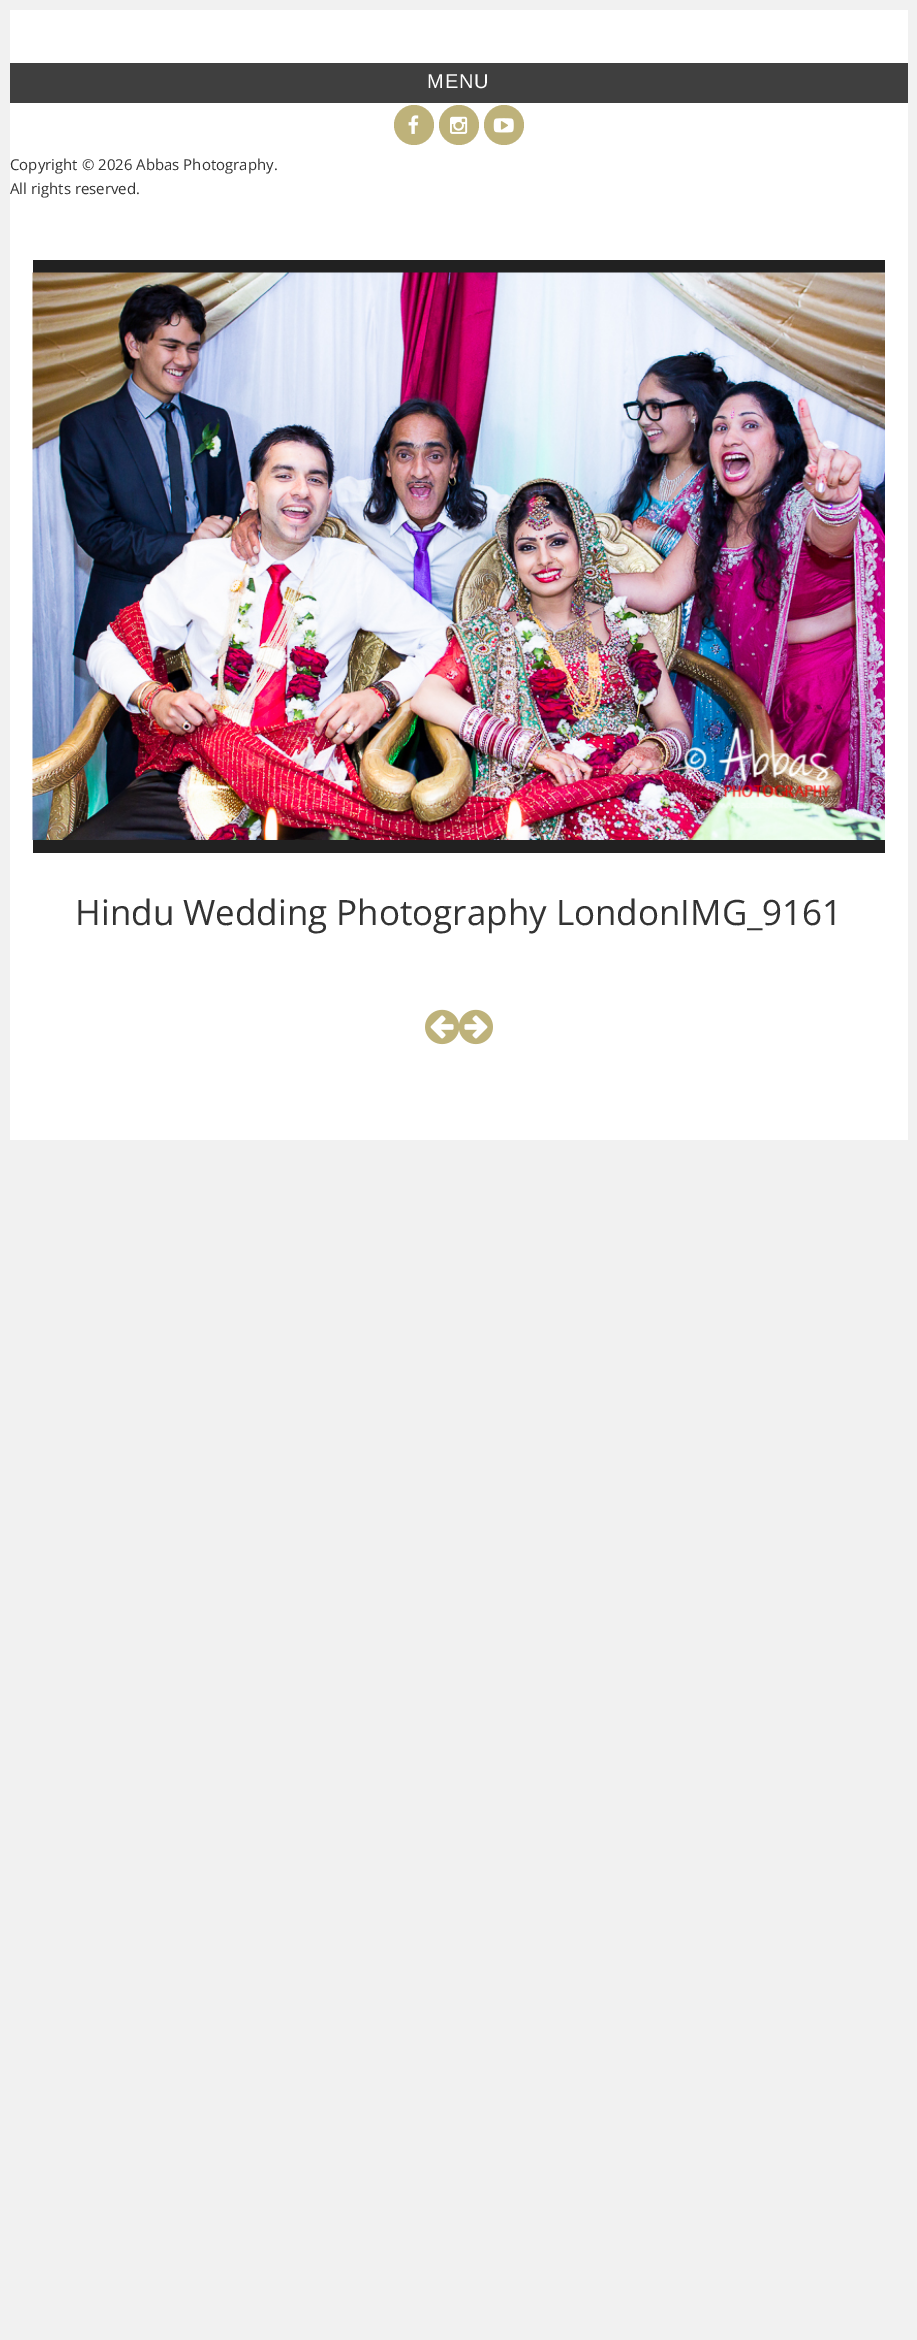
%!PS-Adobe-3.0
%%BoundingBox: 0 0 917 2340
%%LanguageLevel: 3
%%Pages: 1
%%EndComments
%%BeginProlog
/setink { 3 { 255 div 3 1 roll } repeat setrgbcolor } def
/usefont { [ exch dup neg 0 0 3 -1 roll 0 0 ] selectfont } def
/drawtext { setink usefont moveto show } def
/fillbox { setink rectfill } def
/disc { newpath 0 360 arc closepath } def
/drawimage { 5 dict begin { /h /w /y /x /name } { exch def } forall
  gsave x y translate w h scale
  w h 8 [w 0 0 h 0 0] name (r) file false 3 colorimage grestore end } def
%%EndProlog
%%BeginSetup
<< /PageSize [917 2340] >> setpagedevice
%%EndSetup
%%Page: 1 1
0 2340 translate 1 -1 scale
4 setmiterlimit
0 0 917 2340 241 241 241 fillbox
10 10 898 1130 255 255 255 fillbox
10 63 898 40 63 63 63 fillbox
/LiberationSans-Regular 20 usefont
255 255 255 setink
427 88 moveto 1 0 (MENU) ashow
190 178 122 setink
414 125 20 disc fill
(assets/img1.rgb) 408 115 11 19 drawimage
459 125 20 disc fill
(assets/img2.rgb) 450 116 18 18 drawimage
504 125 20 disc fill
(assets/img3.rgb) 493 118 21 15 drawimage
(Copyright © 2026 Abbas Photography.) 10 170 /OpenSans-Regular 15 51 51 51 drawtext
(All rights reserved.) 10 194 /OpenSans-Regular 15 51 51 51 drawtext
33 260 852 593 33 33 33 fillbox
(assets/img4.rgb) 32 272 853 568 drawimage
(Hindu Wedding Photography LondonIMG_9161) 75 925 /OpenSans-Regular 35 51 51 51 drawtext
(assets/img5.rgb) 425 1009 34 36 drawimage
(assets/img6.rgb) 459 1009 34 36 drawimage
showpage
%%EOF
